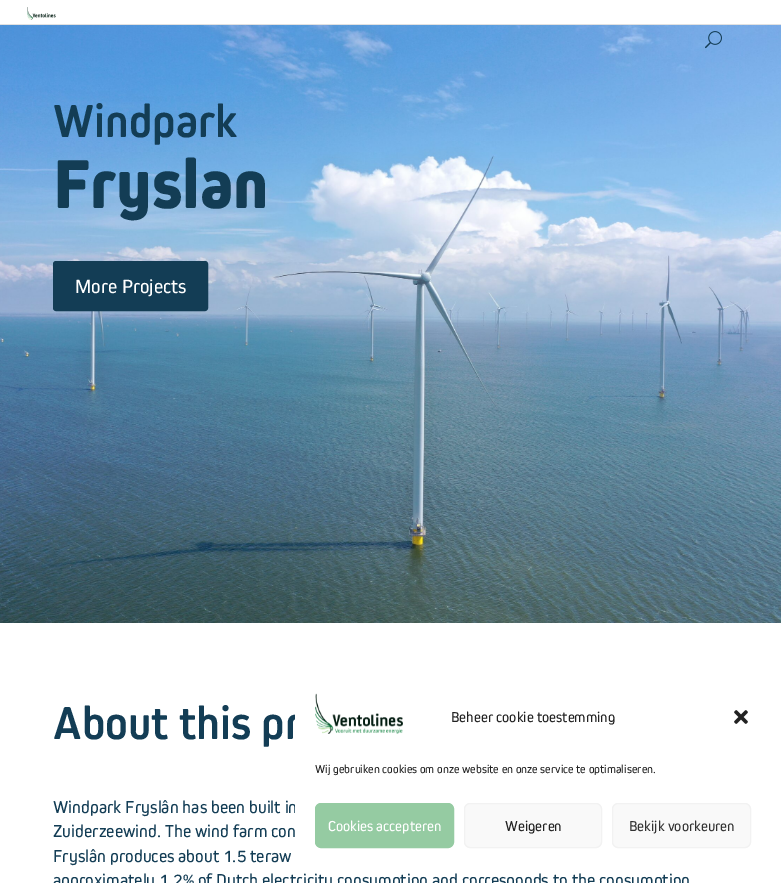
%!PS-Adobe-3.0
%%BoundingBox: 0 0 781 883
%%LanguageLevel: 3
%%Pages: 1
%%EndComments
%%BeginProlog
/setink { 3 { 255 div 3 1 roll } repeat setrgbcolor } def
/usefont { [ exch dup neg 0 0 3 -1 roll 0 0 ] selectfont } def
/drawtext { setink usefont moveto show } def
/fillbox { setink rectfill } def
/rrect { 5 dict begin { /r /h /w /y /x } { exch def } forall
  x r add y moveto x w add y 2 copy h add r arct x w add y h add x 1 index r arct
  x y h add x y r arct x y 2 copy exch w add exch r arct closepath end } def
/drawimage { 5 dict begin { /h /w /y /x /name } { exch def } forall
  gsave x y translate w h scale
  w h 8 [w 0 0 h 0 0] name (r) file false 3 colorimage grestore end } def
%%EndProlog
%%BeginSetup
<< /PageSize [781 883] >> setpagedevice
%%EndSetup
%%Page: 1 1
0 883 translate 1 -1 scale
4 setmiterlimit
0 0 781 883 255 255 255 fillbox
0 24 781 1 225 225 225 fillbox
(assets/img1.rgb) 27 7 29 13 drawimage
(assets/img3.rgb) 0 25 781 598 drawimage
(assets/img2.rgb) 705 31 17 18 drawimage
(Windpark) 53 137 /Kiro-Bold 48 19 61 85 drawtext
(Fryslan) 53 208 /Kiro-ExtraBold 72 19 61 85 drawtext
54 262 153 48 2 rrect gsave fill grestore
2 setlinewidth
stroke
(More Projects) 75 293 /Kiro-Regular 20 255 255 255 drawtext
(About this pr) 53 739 /Kiro-Bold 48 19 61 85 drawtext
(Windpark Fryslân has been built in) 53 813 /Kiro-Regular 18 19 61 85 drawtext
(Zuiderzeewind. The wind farm con) 53 837 /Kiro-Regular 18 19 61 85 drawtext
(Fryslân produces about 1.5 teraw) 53 862 /Kiro-Regular 18 19 61 85 drawtext
(approximately 1.2% of Dutch electricity consumption and corresponds to the consumption) 53 886 /Kiro-Regular 18 19 61 85 drawtext
255 255 255 setink
295 679 476 194 12 rrect fill
(assets/img4.rgb) 315 693 88 41 drawimage
(Beheer cookie toestemming) 451 722 /Kiro-Regular 15 34 34 34 drawtext
(assets/img5.rgb) 734 710 14 14 drawimage
(Wij gebruiken cookies om onze website en onze service te optimaliseren.) 315 773 /Kiro-Regular 12 34 34 34 drawtext
149 203 162 setink
315.5 803.5 138 44 5.5 rrect gsave fill grestore
1 setlinewidth
stroke
(Cookies accepteren) 328 831 /Kiro-Regular 15 255 255 255 drawtext
249 249 249 setink
464.5 803.5 137 44 5.5 rrect gsave fill grestore
242 242 242 setink
stroke
(Weigeren) 505 831 /Kiro-Regular 15 34 34 34 drawtext
249 249 249 setink
612.5 803.5 138 44 5.5 rrect gsave fill grestore
242 242 242 setink
stroke
(Bekijk voorkeuren) 629 831 /Kiro-Regular 15 51 51 51 drawtext
showpage
%%EOF
